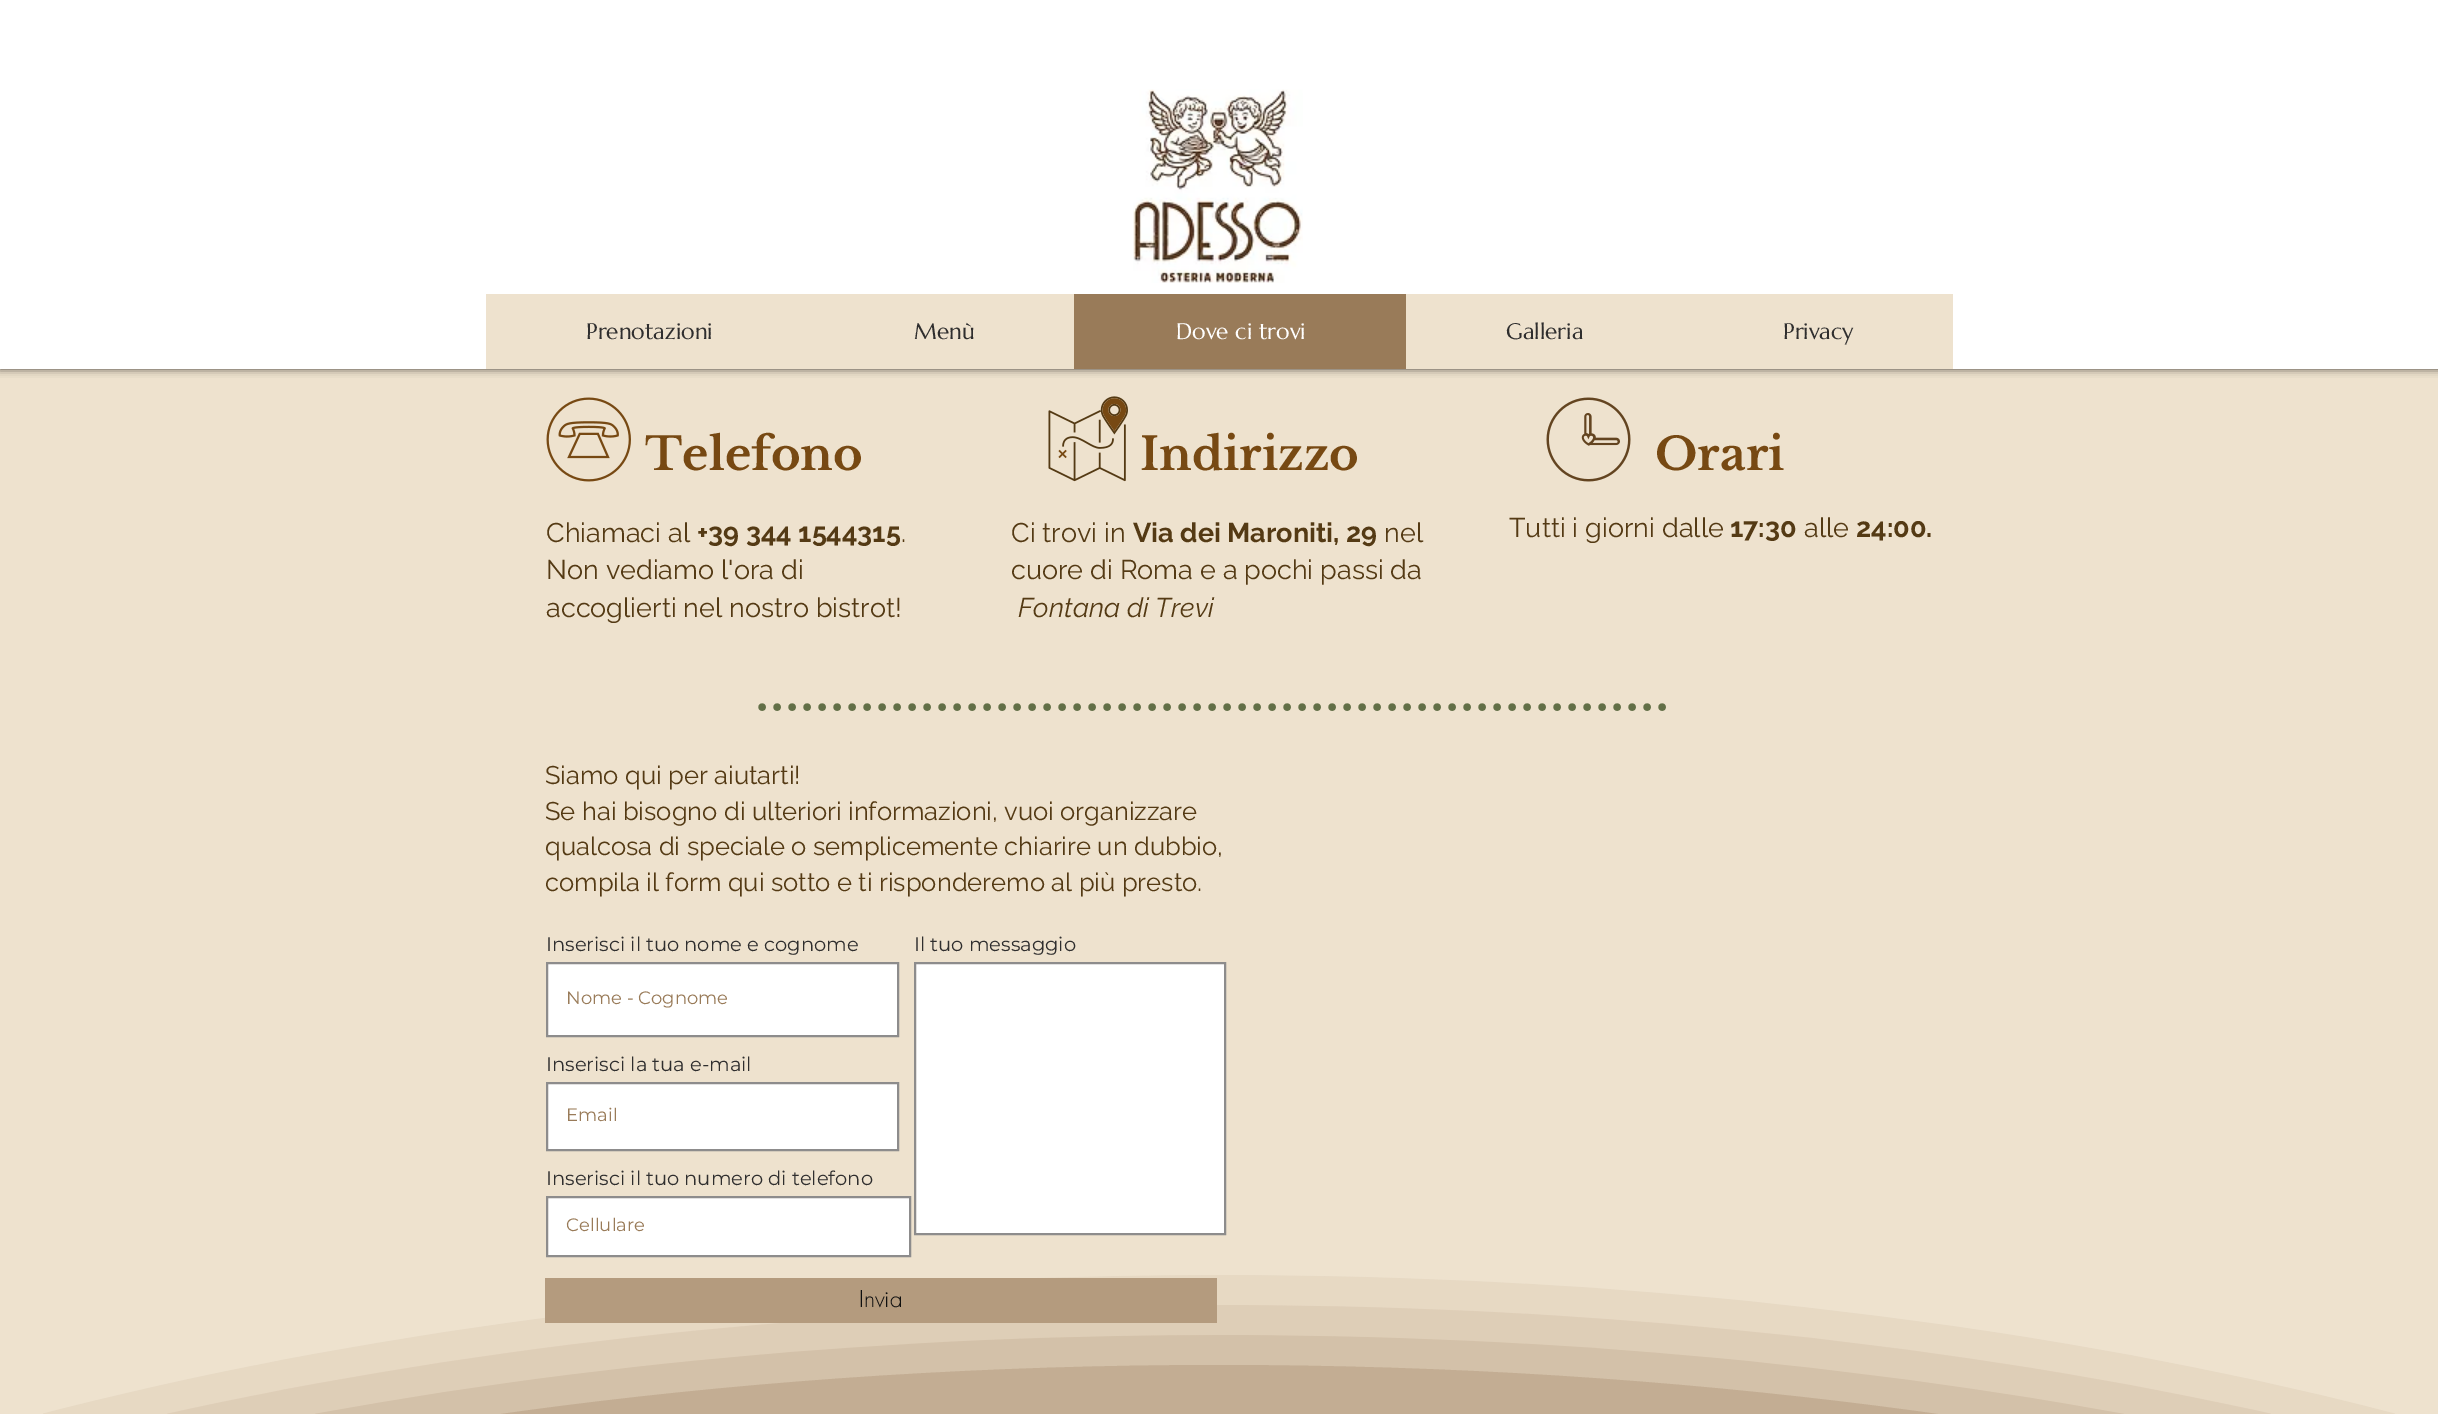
%!PS-Adobe-3.0
%%BoundingBox: 0 0 2438 1414
%%LanguageLevel: 3
%%Pages: 1
%%EndComments
%%BeginProlog
/setink { 3 { 255 div 3 1 roll } repeat setrgbcolor } def
/usefont { [ exch dup neg 0 0 3 -1 roll 0 0 ] selectfont } def
/drawtext { setink usefont moveto show } def
/fillbox { setink rectfill } def
/setalpha { dup .setfillconstantalpha .setstrokeconstantalpha } def
/rrect { 5 dict begin { /r /h /w /y /x } { exch def } forall
  x r add y moveto x w add y 2 copy h add r arct x w add y h add x 1 index r arct
  x y h add x y r arct x y 2 copy exch w add exch r arct closepath end } def
/softshadow { 12 dict begin { /a /b /q /h /w /y /x } { exch def } forall gsave /was 0 def
  9 -2 -9 { dup b mul 4 div /e exch def 1 sub .425 mul 2.718 exch exp 1 add a .99 .min exch div /now exch def
    1 1 now sub 1 was sub div sub setalpha /was now def
    w h .min e 2 mul add 0 gt { x e sub y e sub w e 2 mul add h e 2 mul add
      q e add b .6 mul add w h .min 2 div e add .min 0 .max rrect fill } if } for grestore end } def
/drawimage { 5 dict begin { /h /w /y /x /name } { exch def } forall
  gsave x y translate w h scale
  w h 8 [w 0 0 h 0 0] name (r) file false 3 colorimage grestore end } def
%%EndProlog
%%BeginSetup
<< /PageSize [2438 1414] /PageUsesTransparency true >> setpagedevice
%%EndSetup
%%Page: 1 1
0 .pushpdf14devicefilter
0 1414 translate 1 -1 scale
4 setmiterlimit
0 0 2438 1414 238 226 206 fillbox
0 0 0 setink
0 0 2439 369 0 4 0.7 softshadow
0 0 2438 369 255 255 255 fillbox
(assets/img1.rgb) 1133 89 170 194 drawimage
486 294 1467 75 238 226 206 fillbox
(Prenotazioni) 586 339 /Marcellus-Regular 22.5 47 46 46 drawtext
(Menù) 914 339 /Marcellus-Regular 22.5 47 46 46 drawtext
1074 294 332 75 153 123 89 fillbox
(Dove ci trovi) 1176 339 /Marcellus-Regular 22.5 255 255 255 drawtext
(Galleria) 1506 339 /Marcellus-Regular 22.5 47 46 46 drawtext
(Privacy) 1783 339 /Marcellus-Regular 22.5 47 46 46 drawtext
(assets/img2.rgb) 546 397 85 85 drawimage
(Telefono) 645 470 /LibreBaskerville-Bold 45 119 73 19 drawtext
(assets/img3.rgb) 1048 396 80 86 drawimage
(Indirizzo) 1140 470 /LibreBaskerville-Bold 45 119 73 19 drawtext
(assets/img4.rgb) 1546 397 85 85 drawimage
(Orari) 1655 470 /LibreBaskerville-Bold 45 119 73 19 drawtext
(Chiamaci al) 546 542 /Raleway-Regular 27 84 58 20 drawtext
(+39 344 1544315) 697 542 /Raleway-Bold 27 84 58 20 drawtext
(.) 901 542 /Raleway-Regular 27 84 58 20 drawtext
(Non vediamo l'ora di) 546 579 /Raleway-Regular 27 84 58 20 drawtext
(accoglierti nel nostro bistrot!) 546 617 /Raleway-Regular 27 84 58 20 drawtext
(Ci trovi in) 1011 542 /Raleway-Regular 27 84 58 20 drawtext
(Via dei Maroniti, 29) 1133 542 /Raleway-Bold 27 84 58 20 drawtext
(nel) 1384 542 /Raleway-Regular 27 84 58 20 drawtext
(cuore di Roma e a pochi passi da) 1011 579 /Raleway-Regular 27 84 58 20 drawtext
(Fontana di Trevi) 1018 617 /Raleway-Italic 27 84 58 20 drawtext
(Tutti i giorni dalle) 1509 537 /Raleway-Regular 27 84 58 20 drawtext
(17:30) 1730 537 /Raleway-Bold 27 84 58 20 drawtext
(alle) 1804 537 /Raleway-Regular 27 84 58 20 drawtext
(24:00.) 1856 537 /Raleway-Bold 27 84 58 20 drawtext
98 111 71 setink
7.5 setlinewidth
1 setlinecap
[0 15] 0 setdash
762 707 moveto 1674 707 lineto stroke
(Siamo qui per aiutarti!) 545 784 /Raleway-Regular 25.5 84 58 20 drawtext
(Se hai bisogno di ulteriori informazioni, vuoi organizzare) 545 820 /Raleway-Regular 25.5 84 58 20 drawtext
(qualcosa di speciale o semplicemente chiarire un dubbio,) 545 855 /Raleway-Regular 25.5 84 58 20 drawtext
(compila il form qui sotto e ti risponderemo al più presto.) 545 891 /Raleway-Regular 25.5 84 58 20 drawtext
(Inserisci il tuo nome e cognome) 546 951 /Montserrat-Regular 19.5 47 46 46 drawtext
255 255 255 setink
547 963 moveto 898 963 lineto 898 1036 lineto 547 1036 lineto closepath gsave fill grestore
141 140 140 setink
2 setlinewidth
0 setlinecap
[] 0 setdash
stroke
(Nome - Cognome) 566 1004 /Montserrat-Regular 18 153 123 89 drawtext
(Il tuo messaggio) 914 951 /Montserrat-Regular 19.5 47 46 46 drawtext
255 255 255 setink
915 963 moveto 1225 963 lineto 1225 1234 lineto 915 1234 lineto closepath gsave fill grestore
141 140 140 setink
stroke
(Inserisci la tua e-mail) 546 1071 /Montserrat-Regular 19.5 47 46 46 drawtext
255 255 255 setink
547 1083 moveto 898 1083 lineto 898 1150 lineto 547 1150 lineto closepath gsave fill grestore
141 140 140 setink
stroke
(Email) 566 1121 /Montserrat-Regular 18 153 123 89 drawtext
(Inserisci il tuo numero di telefono) 546 1185 /Montserrat-Regular 19.5 47 46 46 drawtext
255 255 255 setink
547 1197 moveto 910 1197 lineto 910 1256 lineto 547 1256 lineto closepath gsave fill grestore
141 140 140 setink
stroke
(Cellulare) 566 1231 /Montserrat-Regular 18 153 123 89 drawtext
(assets/img5.rgb) 43 1275 2352 139 drawimage
(assets/img6.rgb) 167 1305 2104 109 drawimage
545 1278 672 45 180 155 126 fillbox
(Invia) 859 1307 /futura-Light 22.5 15 15 15 drawtext
(assets/img7.rgb) 315 1335 1809 79 drawimage
195 173 147 setink
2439 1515 moveto 2105 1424 1681 1365 1219 1365 curveto 758 1365 333 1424 0 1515 curveto closepath fill
.poppdf14devicefilter showpage
%%EOF
